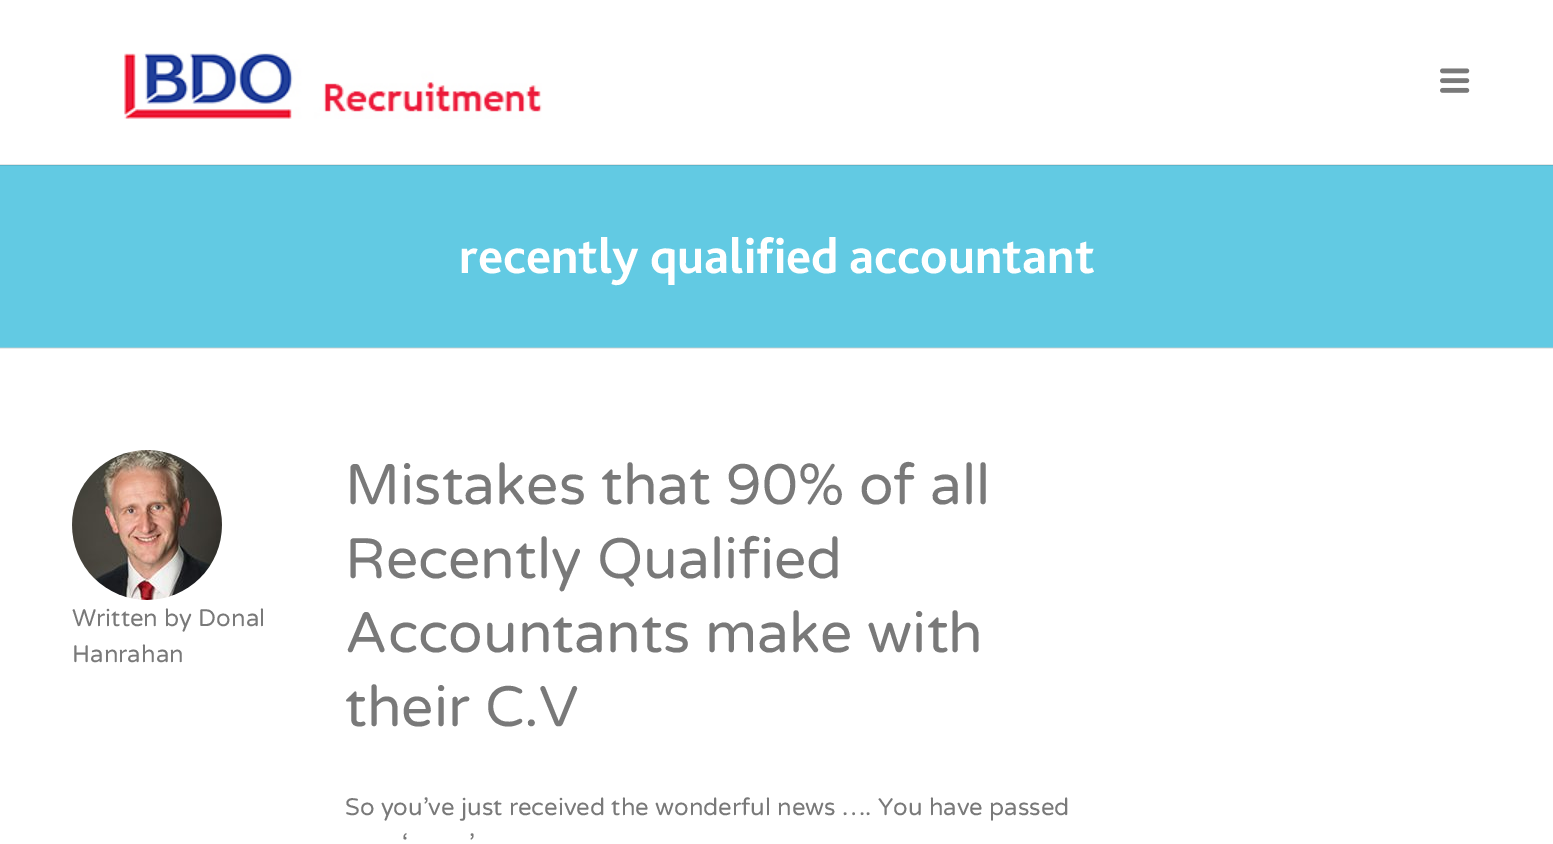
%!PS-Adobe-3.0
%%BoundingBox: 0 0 1553 844
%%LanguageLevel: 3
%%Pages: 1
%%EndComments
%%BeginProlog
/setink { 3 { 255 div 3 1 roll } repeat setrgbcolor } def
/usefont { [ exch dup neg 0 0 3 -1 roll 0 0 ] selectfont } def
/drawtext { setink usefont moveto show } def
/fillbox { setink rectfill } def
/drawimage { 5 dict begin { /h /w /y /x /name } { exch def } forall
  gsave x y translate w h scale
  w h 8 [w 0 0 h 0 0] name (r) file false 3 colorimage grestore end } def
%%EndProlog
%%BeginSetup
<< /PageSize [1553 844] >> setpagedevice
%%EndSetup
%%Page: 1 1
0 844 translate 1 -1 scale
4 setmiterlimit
0 0 1553 844 255 255 255 fillbox
0 164 1553 1 230 230 230 fillbox
(assets/img1.rgb) 124 53 418 66 drawimage
(assets/img2.rgb) 1440 68 30 25 drawimage
0 348 1553 1 234 234 234 fillbox
0 166 1553 181 98 202 227 fillbox
0 165 1553 1 88 182 204 fillbox
0 347 1553 1 141 203 218 fillbox
(recently qualified accountant) 459 273 /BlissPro-Bold 51 255 255 255 drawtext
(assets/img3.rgb) 72 450 150 150 drawimage
(Written by Donal) 72 626 /VarelaRound-Regular 24 121 121 121 drawtext
(Hanrahan) 72 662 /VarelaRound-Regular 24 121 121 121 drawtext
(Mistakes that 90% of all) 345 504 /VarelaRound-Regular 57 121 121 121 drawtext
(Recently Qualified) 345 578 /VarelaRound-Regular 57 121 121 121 drawtext
(Accountants make with) 345 652 /VarelaRound-Regular 57 121 121 121 drawtext
(their C.V) 345 726 /VarelaRound-Regular 57 121 121 121 drawtext
(So you’ve just received the wonderful news …. You have passed) 345 815 /VarelaRound-Regular 24 121 121 121 drawtext
(‘) 402 851 /VarelaRound-Regular 24 121 121 121 drawtext
(’) 469 851 /VarelaRound-Regular 24 121 121 121 drawtext
showpage
%%EOF
